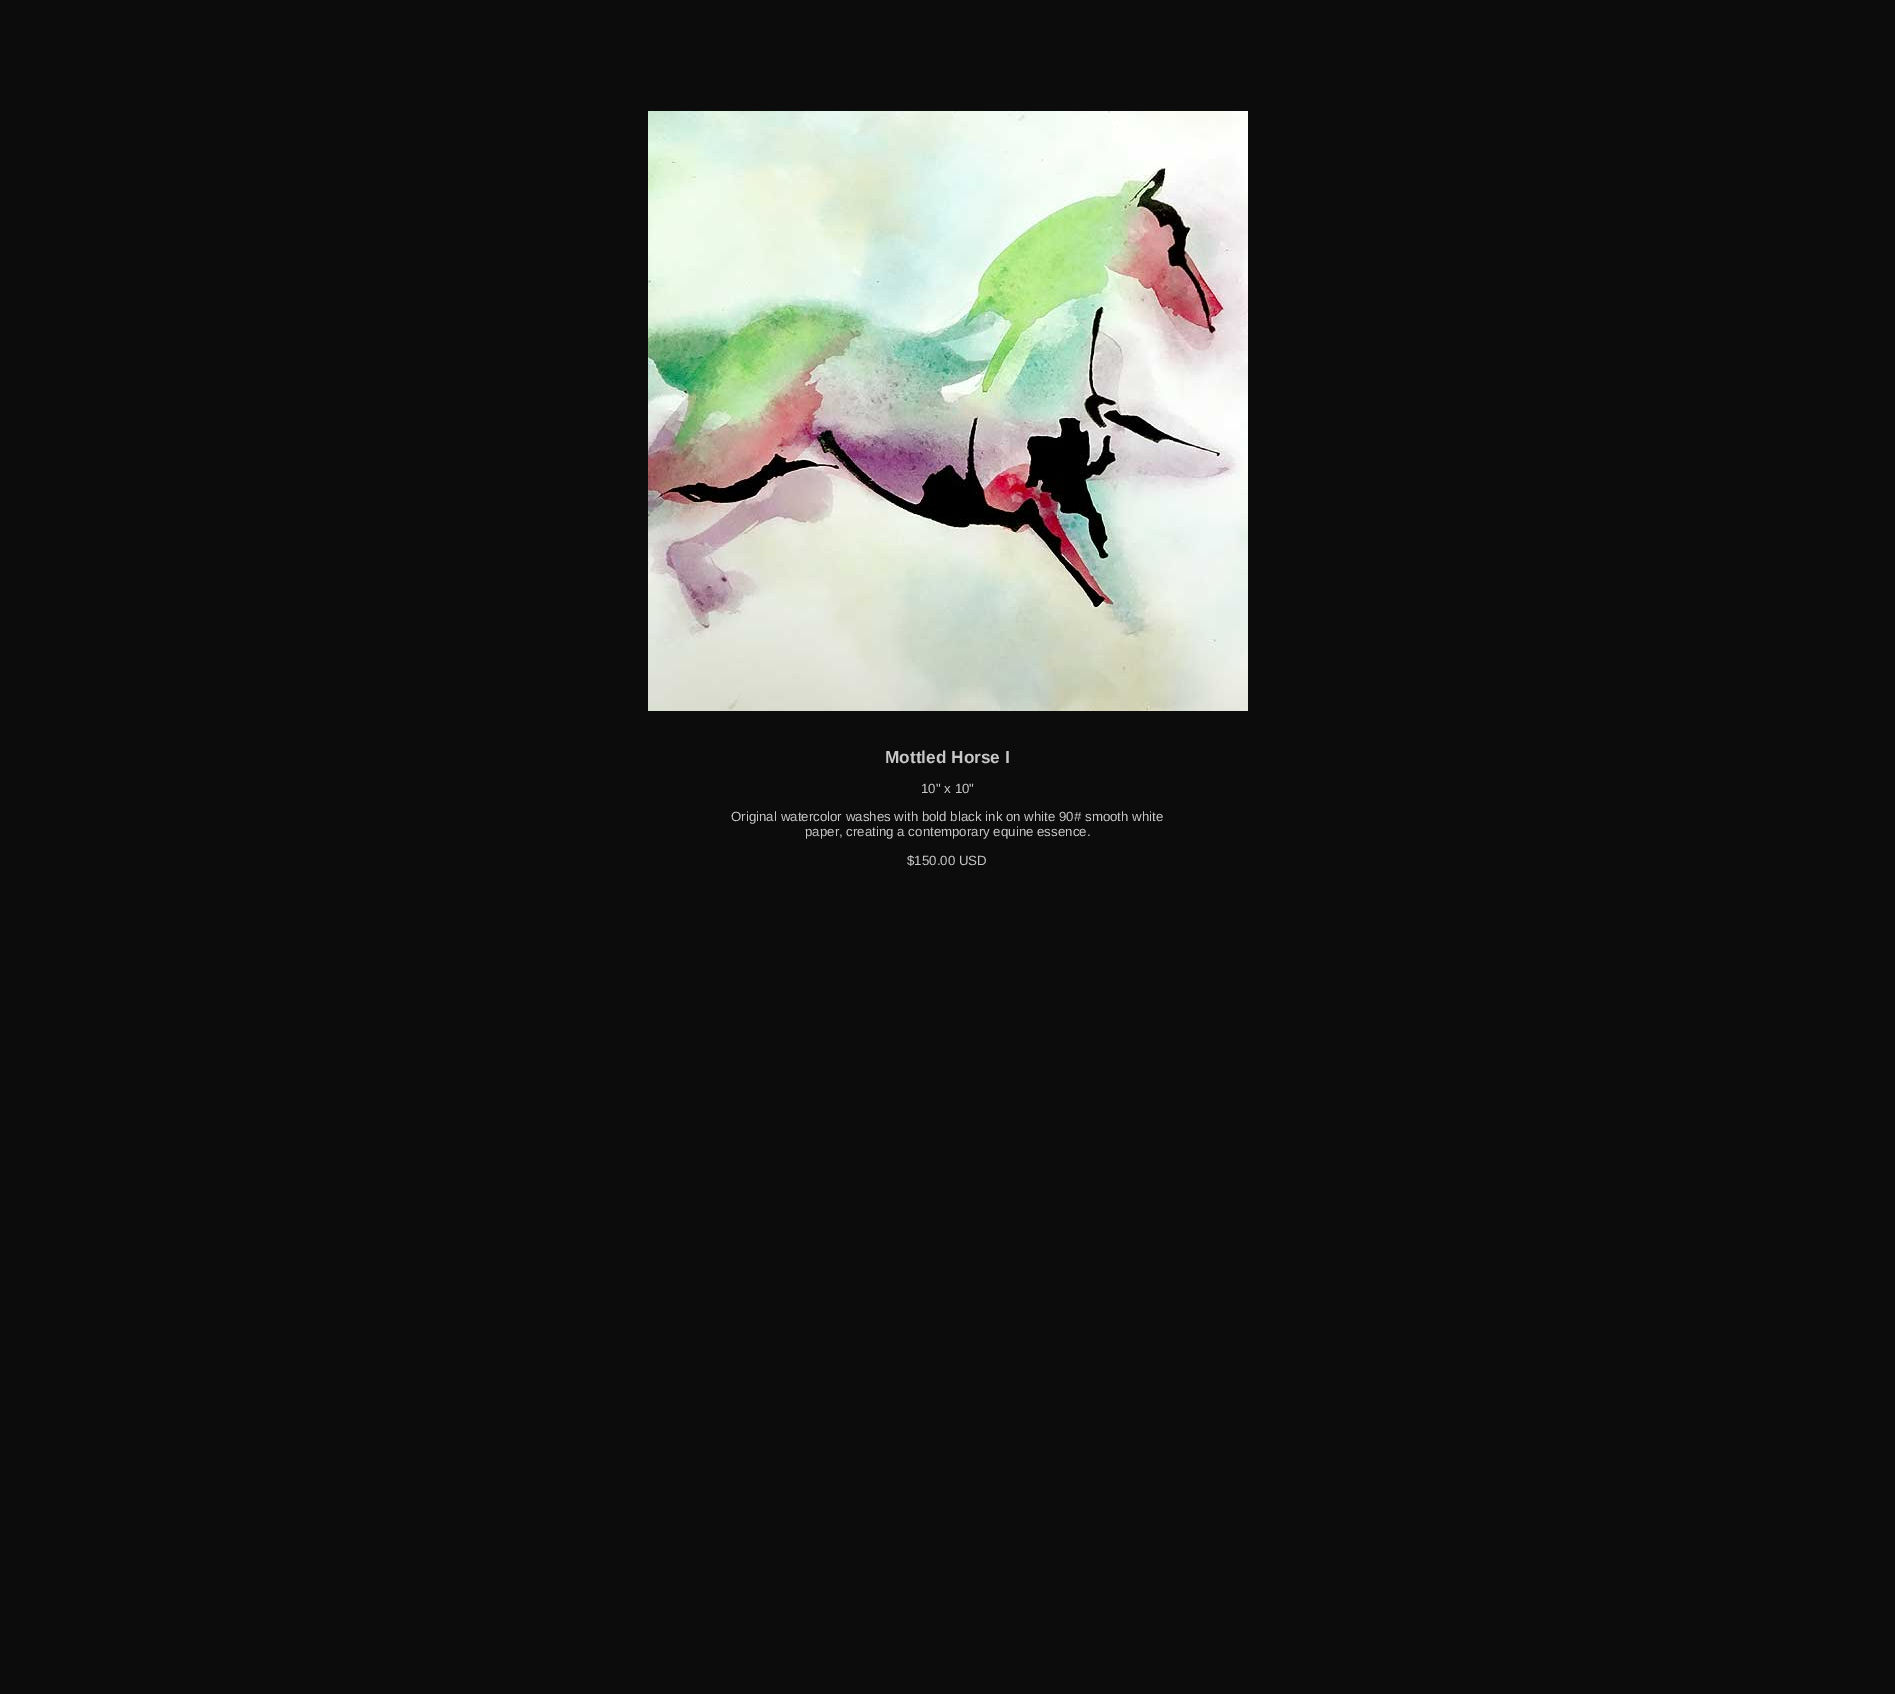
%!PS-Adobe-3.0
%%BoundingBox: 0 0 1895 1694
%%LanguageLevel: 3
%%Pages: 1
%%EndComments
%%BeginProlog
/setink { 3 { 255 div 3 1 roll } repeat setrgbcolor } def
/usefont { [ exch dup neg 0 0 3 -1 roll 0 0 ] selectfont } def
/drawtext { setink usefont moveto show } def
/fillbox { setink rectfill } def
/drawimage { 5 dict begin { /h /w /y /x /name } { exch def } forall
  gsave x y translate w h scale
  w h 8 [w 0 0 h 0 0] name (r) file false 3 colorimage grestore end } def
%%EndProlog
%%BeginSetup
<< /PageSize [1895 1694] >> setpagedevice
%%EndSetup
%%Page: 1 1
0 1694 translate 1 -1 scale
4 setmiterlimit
0 0 1895 1694 12 12 12 fillbox
(assets/img1.rgb) 648 111 600 600 drawimage
(Mottled Horse I) 885 763 /LiberationSans-Bold 17.25 200 200 200 drawtext
(10" x 10") 921 793 /LiberationSans-Regular 13.3 200 200 200 drawtext
(Original watercolor washes with bold black ink on white 90# smooth white) 731 821 /LiberationSans-Regular 13.3 200 200 200 drawtext
(paper, creating a contemporary equine essence.) 805 836 /LiberationSans-Regular 13.3 200 200 200 drawtext
($150.00 USD) 907 865 /LiberationSans-Regular 13.3 200 200 200 drawtext
showpage
%%EOF
